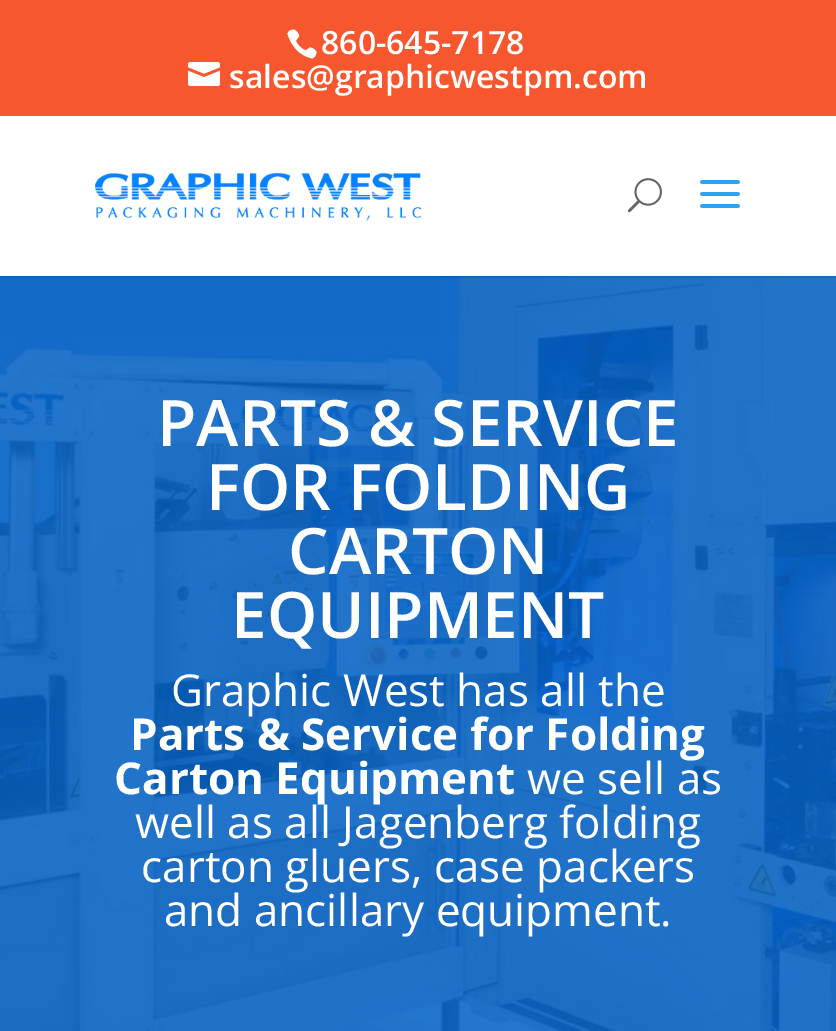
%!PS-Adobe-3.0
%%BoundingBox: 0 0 836 1031
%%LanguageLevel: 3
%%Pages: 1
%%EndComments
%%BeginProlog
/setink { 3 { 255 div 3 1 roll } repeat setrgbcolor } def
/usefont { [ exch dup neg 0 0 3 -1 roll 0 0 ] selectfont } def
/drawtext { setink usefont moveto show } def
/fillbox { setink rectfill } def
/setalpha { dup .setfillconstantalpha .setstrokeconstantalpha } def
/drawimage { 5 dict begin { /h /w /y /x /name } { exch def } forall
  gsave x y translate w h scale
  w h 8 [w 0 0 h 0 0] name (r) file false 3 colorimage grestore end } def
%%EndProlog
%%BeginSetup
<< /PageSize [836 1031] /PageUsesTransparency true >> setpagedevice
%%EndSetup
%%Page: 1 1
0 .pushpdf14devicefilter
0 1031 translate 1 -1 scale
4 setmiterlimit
0 0 836 1031 255 255 255 fillbox
0 0 836 116 247 87 46 fillbox
(assets/img1.rgb) 287 29 30 30 drawimage
(860-645-7178) 321 54 /OpenSans-SemiBold 32 255 255 255 drawtext
(assets/img2.rgb) 188 62 32 24 drawimage
(sales@graphicwestpm.com) 229 88 /OpenSans-SemiBold 32 255 255 255 drawtext
(assets/img6.rgb) 0 276 836 755 drawimage
0.1 setalpha
0 276 836 2 0 0 0 fillbox
1 setalpha
(assets/img3.rgb) 95 172 327 49 drawimage
(assets/img4.rgb) 627 178 35 35 drawimage
(assets/img5.rgb) 700 180 40 28 drawimage
(PARTS & SERVICE) 157 446 /OpenSans-SemiBold 64 255 255 255 drawtext
(FOR FOLDING) 206 510 /OpenSans-SemiBold 64 255 255 255 drawtext
(CARTON) 288 574 /OpenSans-SemiBold 64 255 255 255 drawtext
(EQUIPMENT) 231 638 /OpenSans-SemiBold 64 255 255 255 drawtext
(Graphic West has all the) 171 706 /OpenSans-Regular 44 255 255 255 drawtext
(Parts & Service for Folding) 130 750 /OpenSans-Bold 44 255 255 255 drawtext
(Carton Equipment) 114 794 /OpenSans-Bold 44 255 255 255 drawtext
(we sell as) 527 794 /OpenSans-Regular 44 255 255 255 drawtext
(well as all Jagenberg folding) 135 838 /OpenSans-Regular 44 255 255 255 drawtext
(carton gluers, case packers) 141 882 /OpenSans-Regular 44 255 255 255 drawtext
(and ancillary equipment.) 164 926 /OpenSans-Regular 44 255 255 255 drawtext
.poppdf14devicefilter showpage
%%EOF
